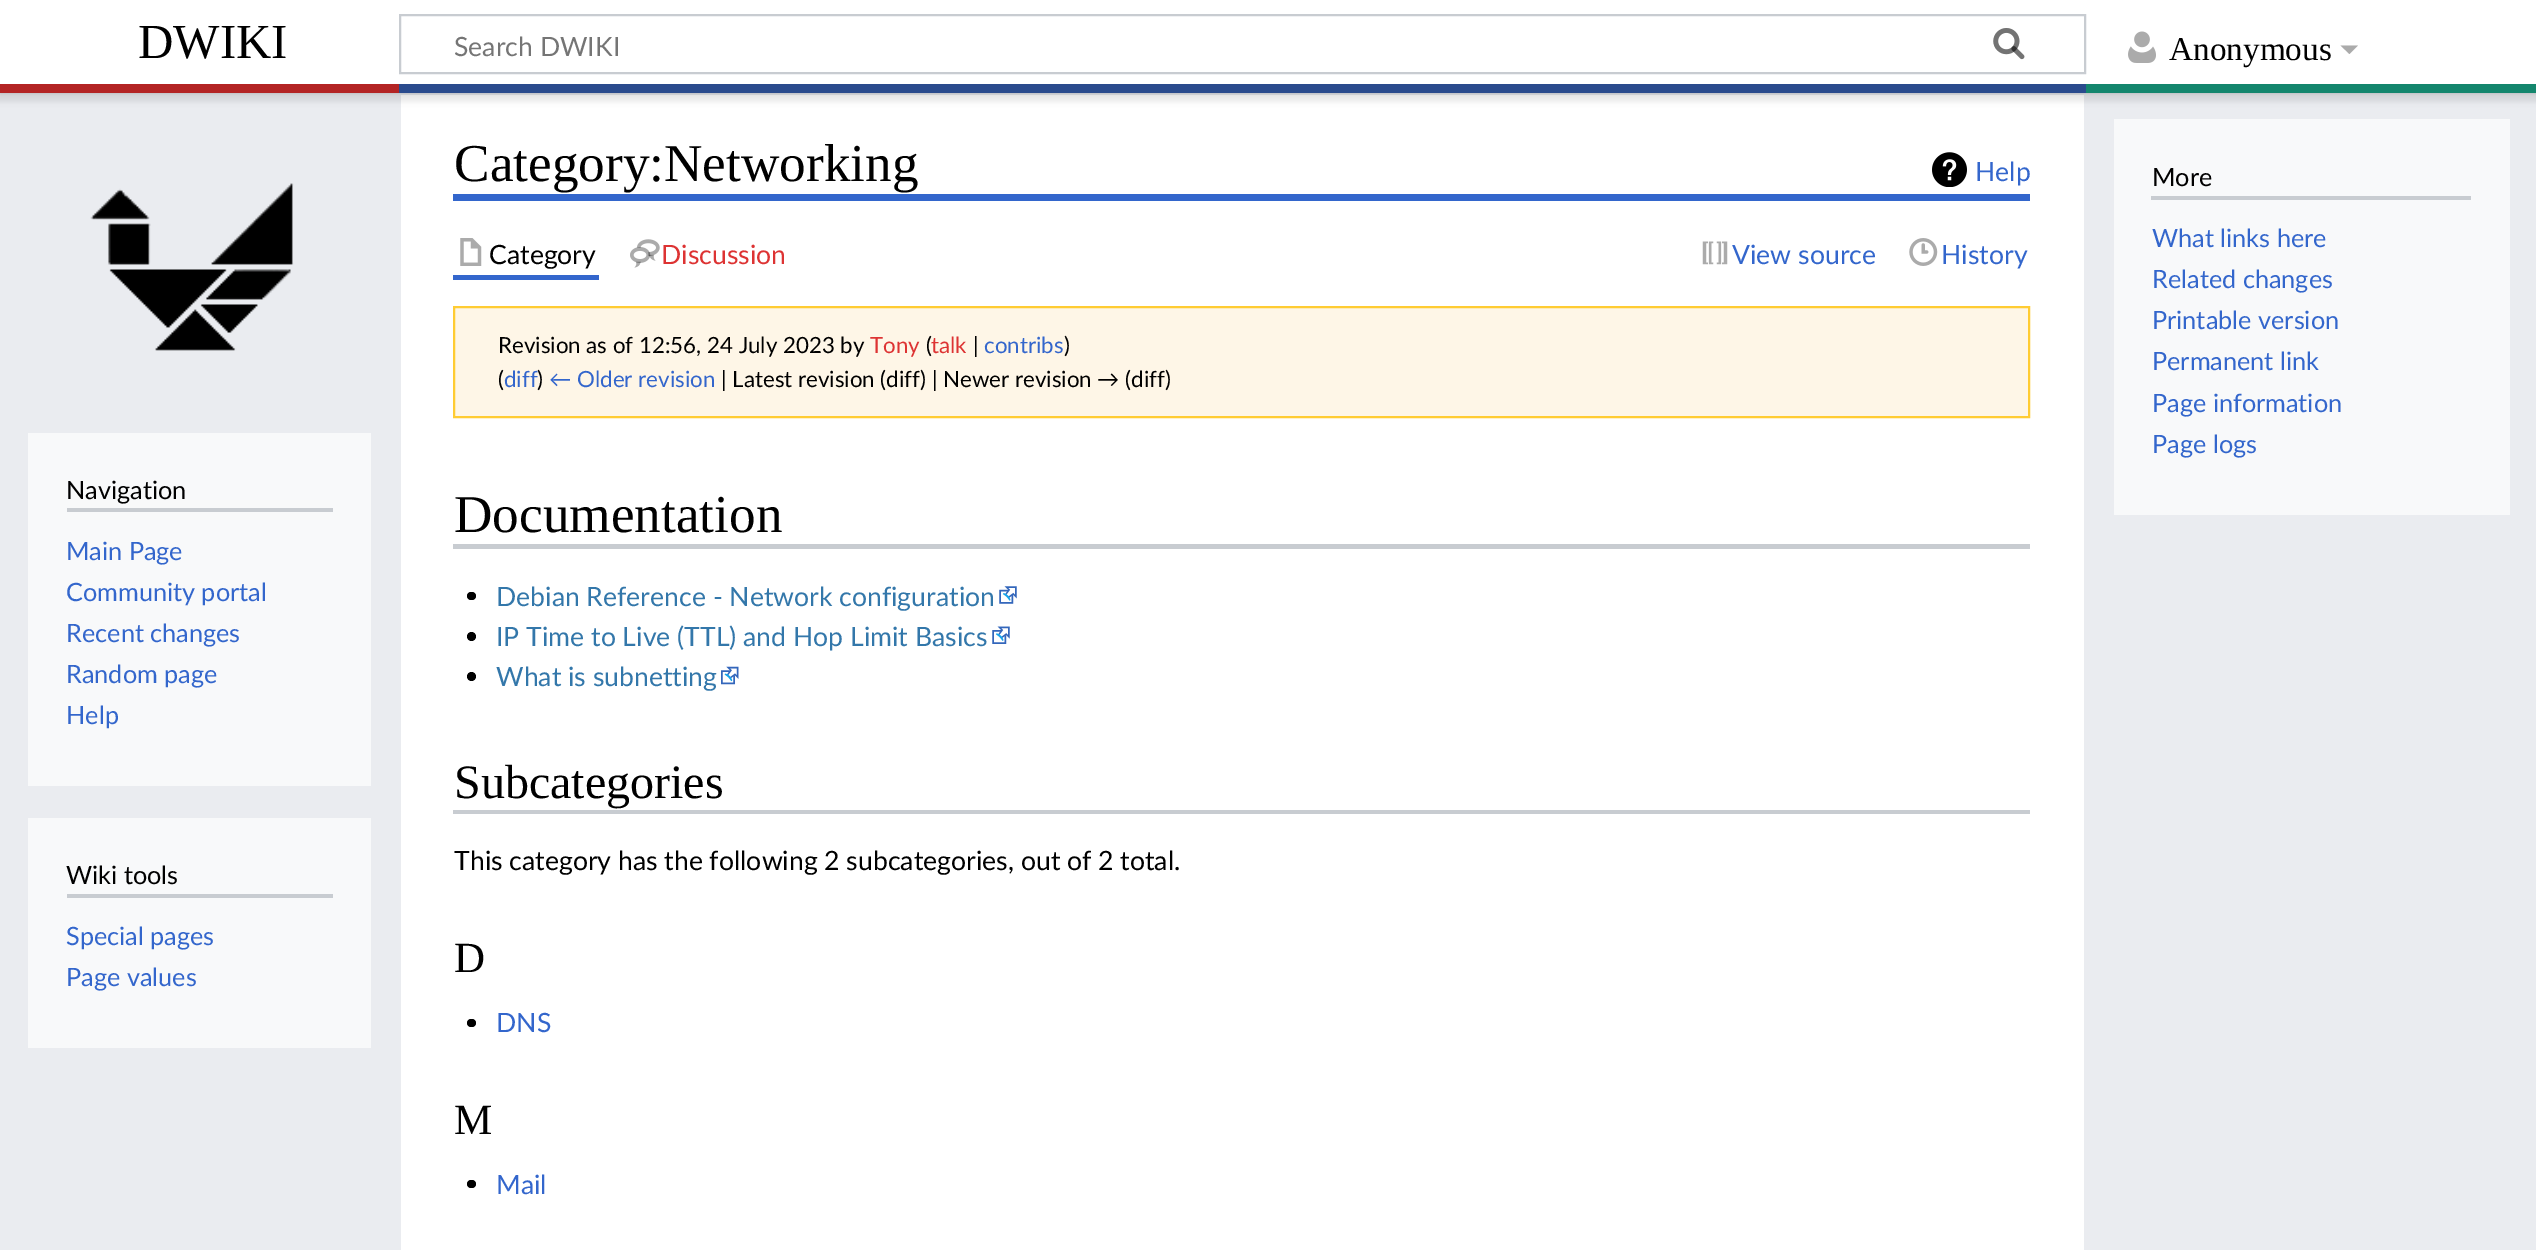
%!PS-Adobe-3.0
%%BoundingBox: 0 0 2536 1250
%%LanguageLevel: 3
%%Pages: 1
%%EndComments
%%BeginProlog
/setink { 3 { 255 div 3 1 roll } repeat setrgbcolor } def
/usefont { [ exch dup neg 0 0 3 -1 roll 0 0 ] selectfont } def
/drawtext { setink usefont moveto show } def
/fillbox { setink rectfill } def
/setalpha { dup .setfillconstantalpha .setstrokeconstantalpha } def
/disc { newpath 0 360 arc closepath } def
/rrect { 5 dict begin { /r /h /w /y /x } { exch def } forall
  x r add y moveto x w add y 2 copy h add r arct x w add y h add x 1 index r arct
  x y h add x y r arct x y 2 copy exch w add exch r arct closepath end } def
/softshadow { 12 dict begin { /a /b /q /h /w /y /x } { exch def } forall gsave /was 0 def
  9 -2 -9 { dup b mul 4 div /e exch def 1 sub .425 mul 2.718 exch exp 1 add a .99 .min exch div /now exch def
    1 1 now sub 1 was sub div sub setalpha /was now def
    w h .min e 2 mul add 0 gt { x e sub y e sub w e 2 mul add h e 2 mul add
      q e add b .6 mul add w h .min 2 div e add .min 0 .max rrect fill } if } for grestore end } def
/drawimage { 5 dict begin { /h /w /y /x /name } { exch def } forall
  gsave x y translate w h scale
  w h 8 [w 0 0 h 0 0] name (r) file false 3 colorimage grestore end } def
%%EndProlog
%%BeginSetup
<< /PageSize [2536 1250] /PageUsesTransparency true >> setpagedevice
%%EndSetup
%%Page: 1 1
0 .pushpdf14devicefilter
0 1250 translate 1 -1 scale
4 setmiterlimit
0 0 2536 1250 234 236 240 fillbox
401 95 1683 1155 255 255 255 fillbox
0 0 0 setink
0 84 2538 9 0 2 0.2 softshadow
-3 86 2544 16 0 2.5 0.07 softshadow
0 0 2536 84 255 255 255 fillbox
(DWIKI) 138 58 /LiberationSerif-Regular 49 0 0 0 drawtext
200 204 209 setink
2 setlinewidth
400 15 1685 58 rectstroke
(assets/img1.rgb) 1993 28 32 32 drawimage
(Search DWIKI) 454 56 /Lato-Regular 26.6 117 117 117 drawtext
(assets/img2.rgb) 1993 28 32 32 drawimage
(assets/img3.rgb) 2128 31 28 32 drawimage
(Anonymous) 2169 60 /LiberationSerif-Regular 33.25 0 0 0 drawtext
171 171 171 setink
2358 45.5 moveto 2349.5 54 lineto 2340.5 45.5 lineto closepath fill
0 84 399 9 179 36 36 fillbox
399 84 1687 9 42 75 141 fillbox
2086 84 450 9 20 134 109 fillbox
453 194 1577 7 51 102 204 fillbox
(Category:Networking) 454 181 /LiberationSerif-Regular 53.25 0 0 0 drawtext
(assets/img4.rgb) 1932 152 35 35 drawimage
(Help) 1975 181 /Lato-Regular 26.6 51 102 204 drawtext
453 275 146 5 51 102 204 fillbox
(assets/img5.rgb) 460 238 22 28 drawimage
(Category) 489 264 /Lato-Regular 26.6 0 0 0 drawtext
(assets/img6.rgb) 630 239 30 29 drawimage
(Discussion) 661 264 /Lato-Regular 26.6 221 51 51 drawtext
(assets/img7.rgb) 1702 241 26 24 drawimage
(View source) 1732 264 /Lato-Regular 26.6 51 102 204 drawtext
(assets/img8.rgb) 1909 238 29 28 drawimage
(History) 1941 264 /Lato-Regular 26.6 51 102 204 drawtext
254 246 231 setink
454 307 moveto 2029 307 lineto 2029 417 lineto 454 417 lineto closepath gsave fill grestore
255 204 51 setink
stroke
(Revision as of 12:56, 24 July 2023 by) 498 353 /Lato-Regular 22.3 0 0 0 drawtext
(Tony) 870 353 /Lato-Regular 22.3 221 51 51 drawtext
(\() 926 353 /Lato-Regular 22.3 0 0 0 drawtext
(talk) 931 353 /Lato-Regular 22.3 221 51 51 drawtext
(|) 973 353 /Lato-Regular 22.3 0 0 0 drawtext
(contribs) 984 353 /Lato-Regular 22.3 51 102 204 drawtext
(\)) 1064 353 /Lato-Regular 22.3 0 0 0 drawtext
(\() 498 387 /Lato-Regular 22.3 0 0 0 drawtext
(diff) 504 387 /Lato-Regular 22.3 51 102 204 drawtext
(\)) 537 387 /Lato-Regular 22.3 0 0 0 drawtext
(← Older revision) 549 387 /Lato-Regular 22.3 51 102 204 drawtext
(| Latest revision \(diff\) | Newer revision → \(diff\)) 721 387 /Lato-Regular 22.3 0 0 0 drawtext
(Documentation) 454 532 /LiberationSerif-Regular 53.25 0 0 0 drawtext
453 544 1577 5 200 204 209 fillbox
0 0 0 setink
467 592 9 8 4 rrect fill
(Debian Reference - Network configuration) 496 606 /Lato-Regular 26.6 51 119 170 drawtext
(assets/img9.rgb) 999 586 18 18 drawimage
0 0 0 setink
471.5 636.5 4.5 disc fill
(IP Time to Live \(TTL\) and Hop Limit Basics) 496 646 /Lato-Regular 26.6 51 119 170 drawtext
(assets/img10.rgb) 992 626 18 18 drawimage
0 0 0 setink
471.5 676.5 4.5 disc fill
(What is subnetting) 496 686 /Lato-Regular 26.6 51 119 170 drawtext
(assets/img11.rgb) 721 666 18 19 drawimage
453 810 1577 4 200 204 209 fillbox
(Subcategories) 454 798 /LiberationSerif-Regular 48 0 0 0 drawtext
(This category has the following 2 subcategories, out of 2 total.) 454 870 /Lato-Regular 26.6 0 0 0 drawtext
(D) 454 972 /LiberationSerif-Regular 43 0 0 0 drawtext
467 1019 9 8 4 rrect fill
(DNS) 496 1032 /Lato-Regular 26.6 51 102 204 drawtext
(M) 454 1134 /LiberationSerif-Regular 43 0 0 0 drawtext
467 1180 9 8 4 rrect fill
(Mail) 496 1194 /Lato-Regular 26.6 51 102 204 drawtext
2114 119 396 396 248 249 250 fillbox
2151 196 320 4 200 204 209 fillbox
(More) 2152 186 /Lato-Regular 25.25 0 0 0 drawtext
(What links here) 2152 247 /Lato-Regular 25.25 51 102 204 drawtext
(Related changes) 2152 288 /Lato-Regular 25.25 51 102 204 drawtext
(Printable version) 2152 329 /Lato-Regular 25.25 51 102 204 drawtext
(Permanent link) 2152 370 /Lato-Regular 25.25 51 102 204 drawtext
(Page information) 2152 412 /Lato-Regular 25.25 51 102 204 drawtext
(Page logs) 2152 453 /Lato-Regular 25.25 51 102 204 drawtext
(assets/img12.rgb) 90 183 204 168 drawimage
28 433 343 353 248 249 250 fillbox
67 508 266 4 200 204 209 fillbox
(Navigation) 66 499 /Lato-Regular 25.25 0 0 0 drawtext
(Main Page) 66 560 /Lato-Regular 25.25 51 102 204 drawtext
(Community portal) 66 601 /Lato-Regular 25.25 51 102 204 drawtext
(Recent changes) 66 642 /Lato-Regular 25.25 51 102 204 drawtext
(Random page) 66 683 /Lato-Regular 25.25 51 102 204 drawtext
(Help) 66 724 /Lato-Regular 25.25 51 102 204 drawtext
28 818 343 230 248 249 250 fillbox
67 894 266 4 200 204 209 fillbox
(Wiki tools) 66 884 /Lato-Regular 25.25 0 0 0 drawtext
(Special pages) 66 945 /Lato-Regular 25.25 51 102 204 drawtext
(Page values) 66 986 /Lato-Regular 25.25 51 102 204 drawtext
.poppdf14devicefilter showpage
%%EOF
